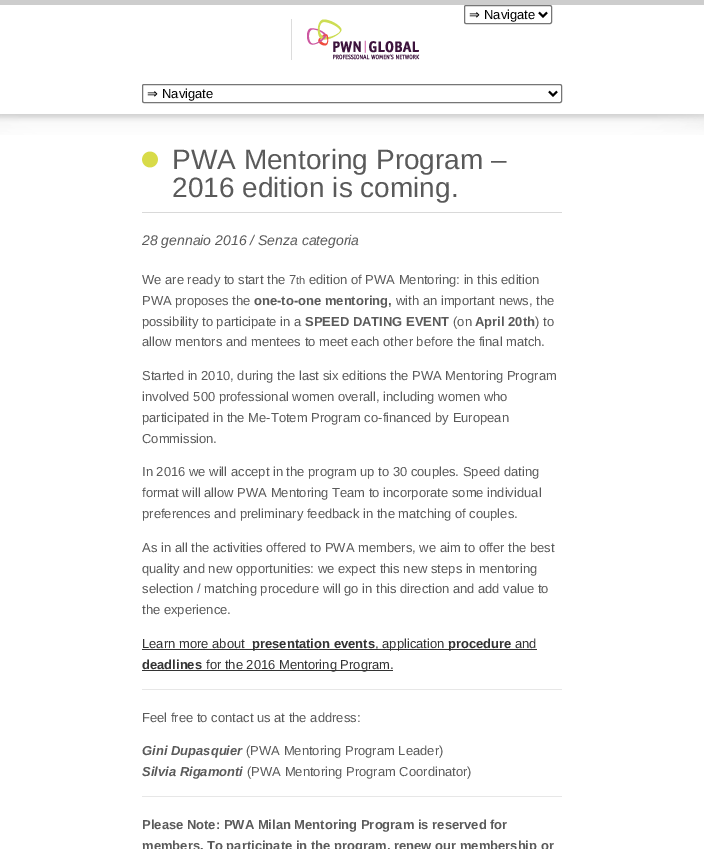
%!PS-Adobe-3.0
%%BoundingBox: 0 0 704 849
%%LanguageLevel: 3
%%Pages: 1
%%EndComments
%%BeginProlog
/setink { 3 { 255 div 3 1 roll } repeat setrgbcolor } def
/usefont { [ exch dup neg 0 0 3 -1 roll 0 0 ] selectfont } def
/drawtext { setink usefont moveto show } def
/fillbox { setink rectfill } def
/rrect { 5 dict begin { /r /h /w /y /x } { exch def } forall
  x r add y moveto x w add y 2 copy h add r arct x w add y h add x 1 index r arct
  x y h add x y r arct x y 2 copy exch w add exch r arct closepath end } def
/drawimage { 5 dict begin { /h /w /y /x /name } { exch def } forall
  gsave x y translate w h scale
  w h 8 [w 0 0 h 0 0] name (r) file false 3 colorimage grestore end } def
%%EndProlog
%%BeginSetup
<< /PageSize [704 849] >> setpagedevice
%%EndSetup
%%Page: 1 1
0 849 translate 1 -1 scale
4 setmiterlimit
0 0 704 849 255 255 255 fillbox
0 0 704 5 205 205 205 fillbox
118 118 118 setink
464.5 5.5 87 18 1.5 rrect stroke
0 0 0 setink
2 setlinewidth
539 12.5 moveto 543 16.5 lineto 547 12.5 lineto stroke
(⇒) 469 19 /DejaVuSans-Regular 13 0 0 0 drawtext
(Navigate) 484 19 /LiberationSans-Regular 13 0 0 0 drawtext
291 19 1 41 220 220 220 fillbox
(assets/img1.rgb) 307 19 113 41 drawimage
118 118 118 setink
1 setlinewidth
142.5 84.5 419 18 1.5 rrect stroke
0 0 0 setink
2 setlinewidth
549 91.5 moveto 553 95.5 lineto 557 91.5 lineto stroke
(⇒) 147 98 /DejaVuSans-Regular 13 0 0 0 drawtext
(Navigate) 162 98 /LiberationSans-Regular 13 0 0 0 drawtext
(assets/img2.rgb) 0 114 704 21 drawimage
(assets/img3.rgb) 142 151 16 17 drawimage
142 212 420 1 217 217 217 fillbox
(PWA Mentoring Program –) 172 169 /LiberationSans-Regular 28 90 90 90 drawtext
(2016 edition is coming.) 172 197 /LiberationSans-Regular 28 90 90 90 drawtext
(28 gennaio 2016 / Senza categoria) 142 245 /LiberationSans-Italic 14 90 90 90 drawtext
(We are ready to start the 7) 142 284 /LiberationSans-Regular 13 90 90 90 drawtext
(th) 296 284 /LiberationSans-Regular 11 90 90 90 drawtext
(edition of PWA Mentoring: in this edition) 309 284 /LiberationSans-Regular 13 90 90 90 drawtext
(PWA proposes the) 142 305 /LiberationSans-Regular 13 90 90 90 drawtext
(one-to-one mentoring,) 254 305 /LiberationSans-Bold 13 90 90 90 drawtext
(with an important news, the) 396 305 /LiberationSans-Regular 13 90 90 90 drawtext
(possibility to participate in a) 142 326 /LiberationSans-Regular 13 90 90 90 drawtext
(SPEED DATING EVENT) 305 326 /LiberationSans-Bold 13 90 90 90 drawtext
(\(on) 453 326 /LiberationSans-Regular 13 90 90 90 drawtext
(April 20th) 475 326 /LiberationSans-Bold 13 90 90 90 drawtext
(\) to) 535 326 /LiberationSans-Regular 13 90 90 90 drawtext
(allow mentors and mentees to meet each other before the final match.) 142 346 /LiberationSans-Regular 13 90 90 90 drawtext
(Started in 2010, during the last six editions the PWA Mentoring Program) 142 380 /LiberationSans-Regular 13 90 90 90 drawtext
(involved 500 professional women overall, including women who) 142 401 /LiberationSans-Regular 13 90 90 90 drawtext
(participated in the Me-Totem Program co-financed by European) 142 422 /LiberationSans-Regular 13 90 90 90 drawtext
(Commission.) 142 443 /LiberationSans-Regular 13 90 90 90 drawtext
(In 2016 we will accept in the program up to 30 couples. Speed dating) 142 476 /LiberationSans-Regular 13 90 90 90 drawtext
(format will allow PWA Mentoring Team to incorporate some individual) 142 497 /LiberationSans-Regular 13 90 90 90 drawtext
(preferences and preliminary feedback in the matching of couples.) 142 518 /LiberationSans-Regular 13 90 90 90 drawtext
(As in all the activities offered to PWA members, we aim to offer the best) 142 552 /LiberationSans-Regular 13 90 90 90 drawtext
(quality and new opportunities: we expect this new steps in mentoring) 142 573 /LiberationSans-Regular 13 90 90 90 drawtext
(selection / matching procedure will go in this direction and add value to) 142 593 /LiberationSans-Regular 13 90 90 90 drawtext
(the experience.) 142 614 /LiberationSans-Regular 13 90 90 90 drawtext
(Learn more about) 142 648 /LiberationSans-Regular 13 51 51 51 drawtext
142 649 395 1 51 51 51 fillbox
(presentation events) 252 648 /LiberationSans-Bold 13 51 51 51 drawtext
(, application) 375 648 /LiberationSans-Regular 13 51 51 51 drawtext
(procedure) 448 648 /LiberationSans-Bold 13 51 51 51 drawtext
(and) 515 648 /LiberationSans-Regular 13 51 51 51 drawtext
(deadlines) 142 669 /LiberationSans-Bold 13 51 51 51 drawtext
142 670 251 1 51 51 51 fillbox
(for the 2016 Mentoring Program.) 206 669 /LiberationSans-Regular 13 51 51 51 drawtext
142 689 420 1 231 231 231 fillbox
(Feel free to contact us at the address:) 142 722 /LiberationSans-Regular 13 90 90 90 drawtext
(Gini Dupasquier) 142 755 /LiberationSans-BoldItalic 13 90 90 90 drawtext
(\(PWA Mentoring Program Leader\)) 246 755 /LiberationSans-Regular 13 90 90 90 drawtext
(Silvia Rigamonti) 142 776 /LiberationSans-BoldItalic 13 90 90 90 drawtext
(\(PWA Mentoring Program Coordinator\)) 247 776 /LiberationSans-Regular 13 90 90 90 drawtext
142 796 420 1 231 231 231 fillbox
(Please Note: PWA Milan Mentoring Program is reserved for) 142 829 /LiberationSans-Bold 13 90 90 90 drawtext
(members. To participate in the program, renew our membership or) 142 850 /LiberationSans-Bold 13 90 90 90 drawtext
showpage
%%EOF
